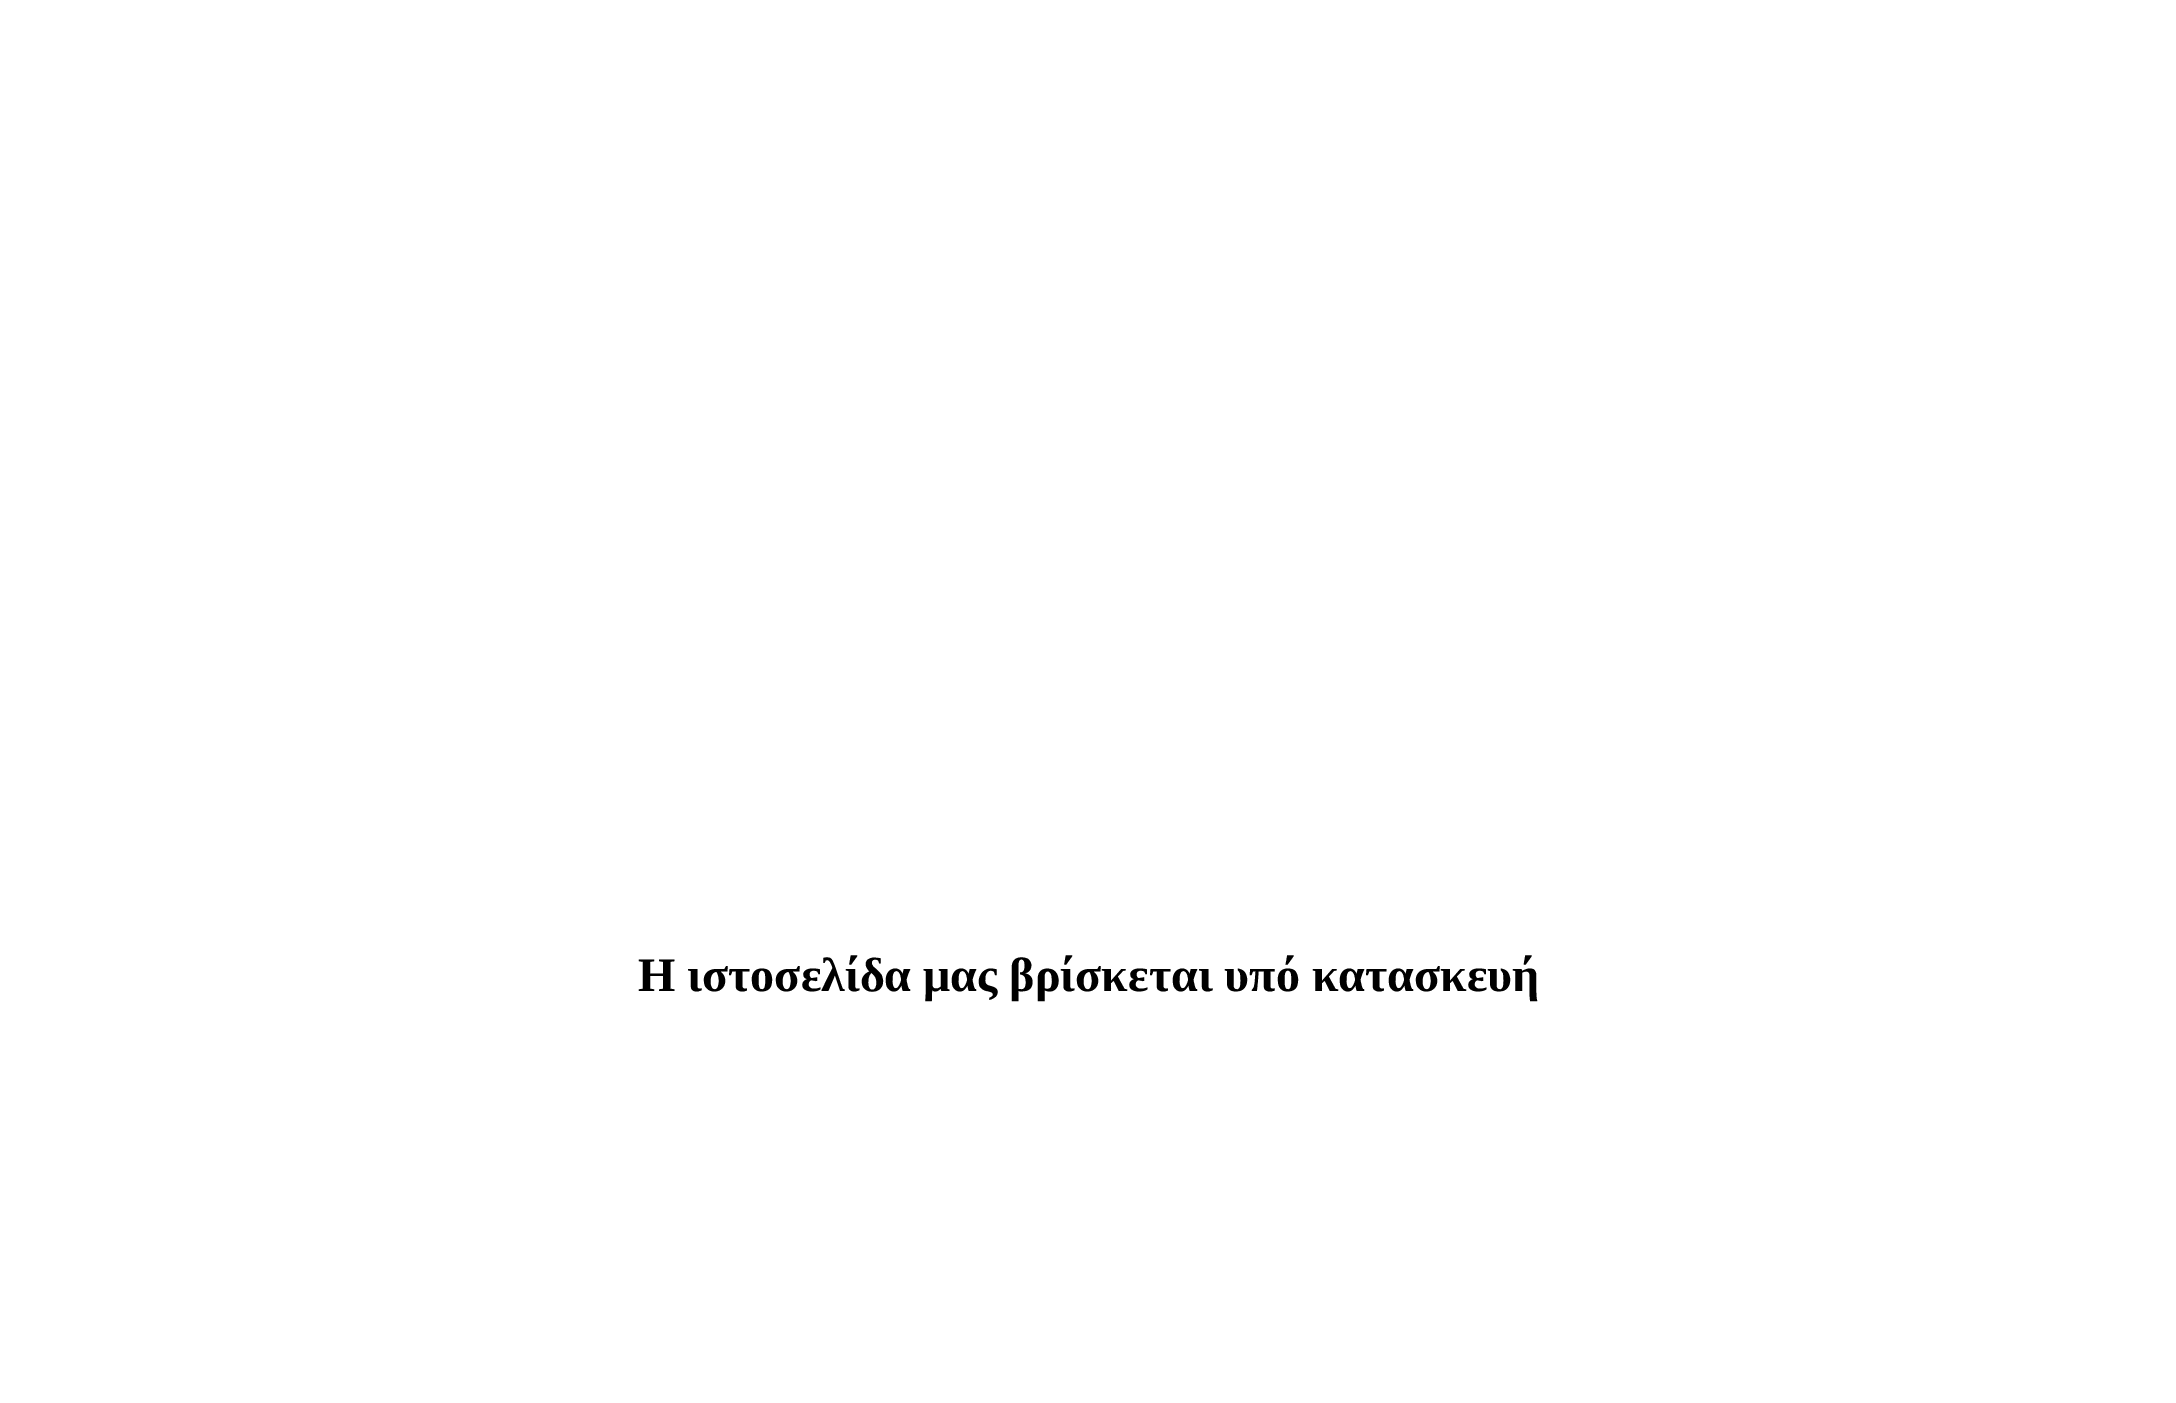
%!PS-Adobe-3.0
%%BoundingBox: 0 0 2176 1403
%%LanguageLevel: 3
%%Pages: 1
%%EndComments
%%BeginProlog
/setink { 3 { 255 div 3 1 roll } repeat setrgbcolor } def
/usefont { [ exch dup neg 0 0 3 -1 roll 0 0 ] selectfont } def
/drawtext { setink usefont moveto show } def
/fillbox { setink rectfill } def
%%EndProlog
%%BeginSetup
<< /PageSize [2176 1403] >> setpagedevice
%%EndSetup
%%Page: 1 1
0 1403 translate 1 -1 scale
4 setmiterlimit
0 0 2176 1403 255 255 255 fillbox
(Η ιστοσελίδα μας βρίσκεται υπό κατασκευή) 638 991 /LiberationSerif-Bold 48 0 0 0 drawtext
showpage
%%EOF
